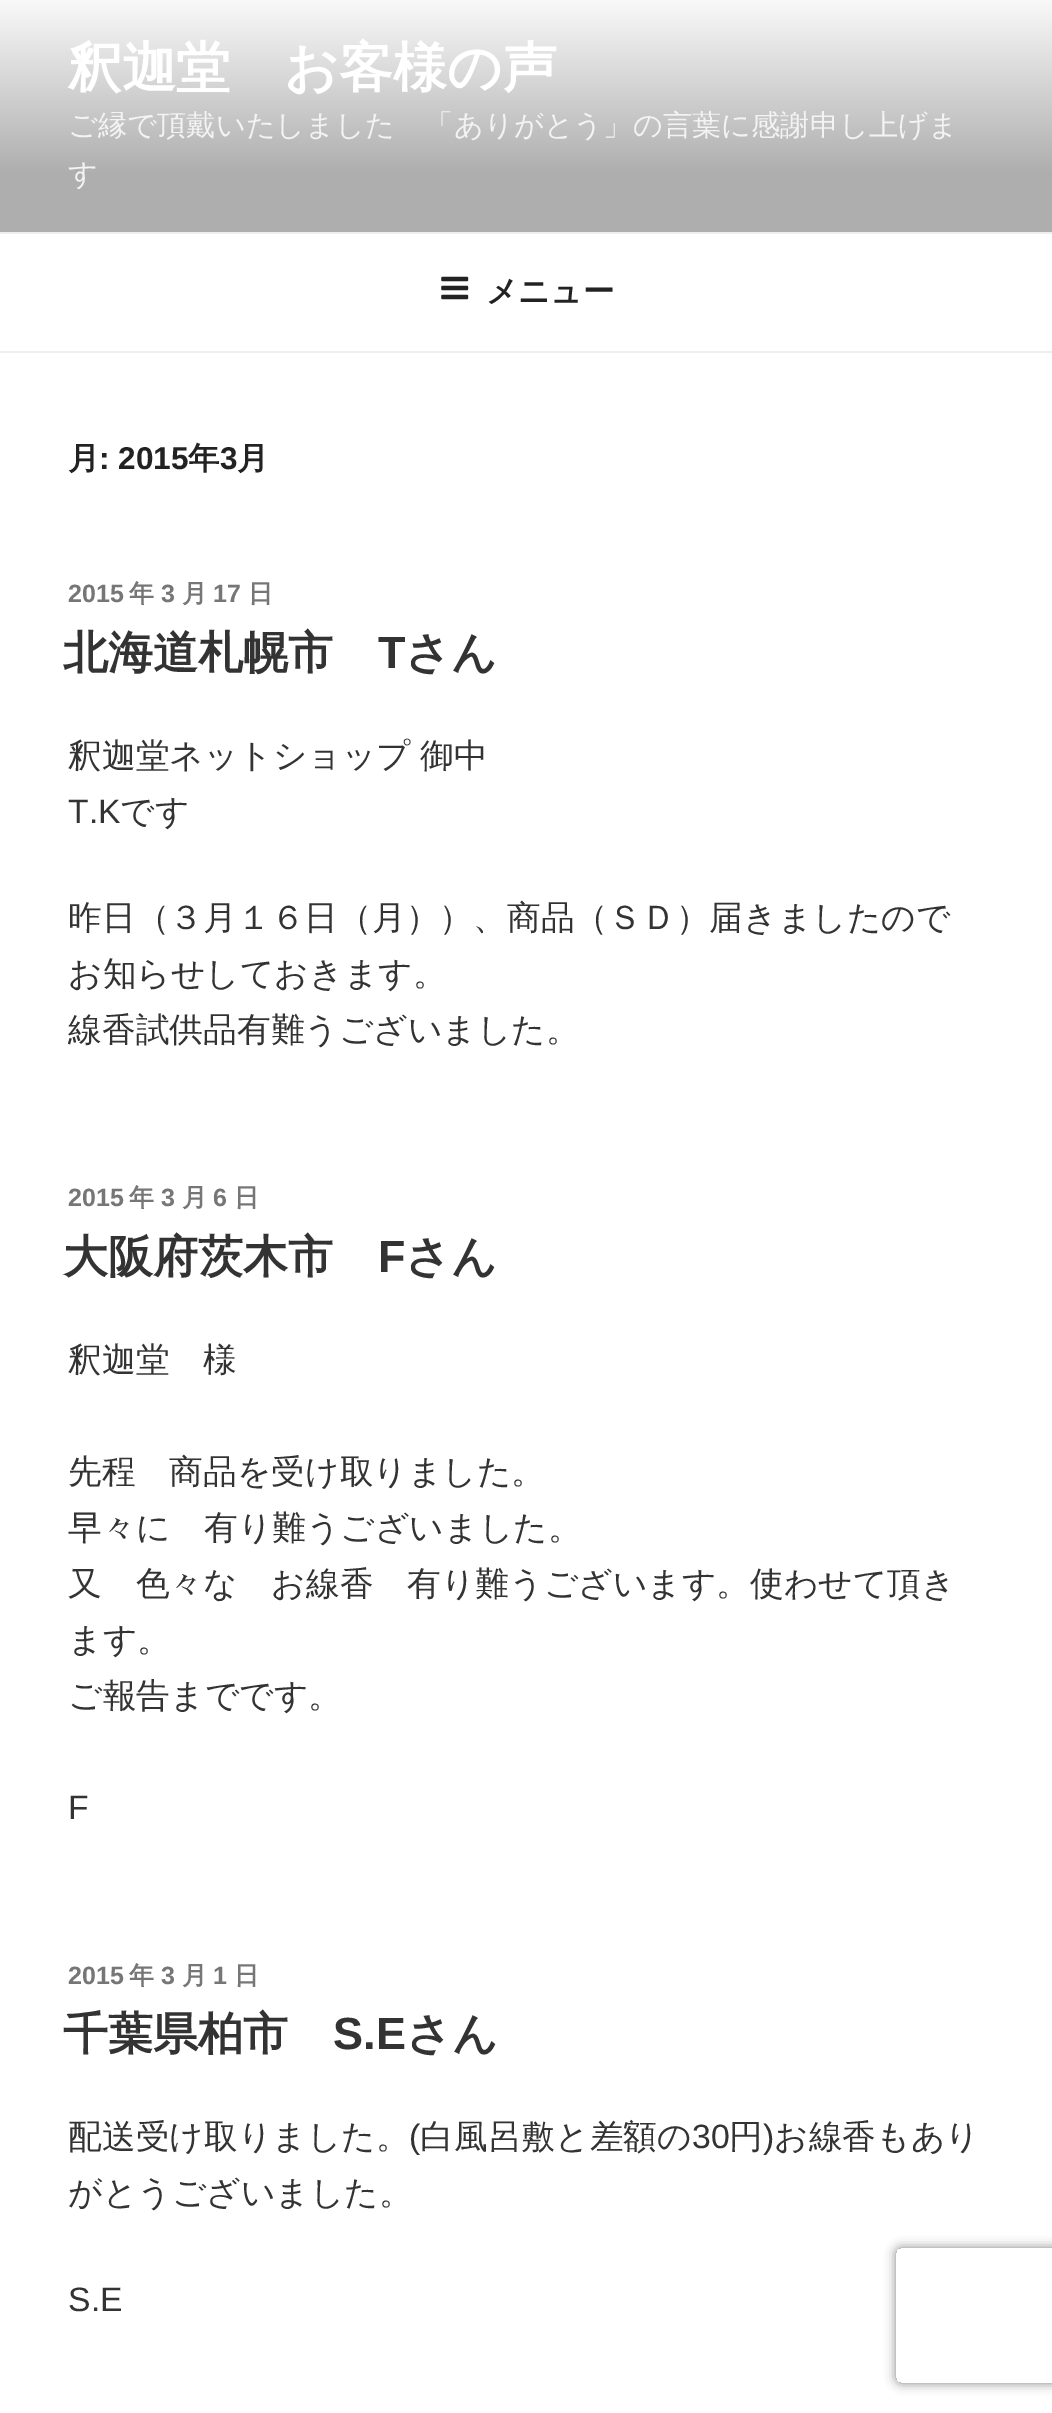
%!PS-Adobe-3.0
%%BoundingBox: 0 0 1052 2413
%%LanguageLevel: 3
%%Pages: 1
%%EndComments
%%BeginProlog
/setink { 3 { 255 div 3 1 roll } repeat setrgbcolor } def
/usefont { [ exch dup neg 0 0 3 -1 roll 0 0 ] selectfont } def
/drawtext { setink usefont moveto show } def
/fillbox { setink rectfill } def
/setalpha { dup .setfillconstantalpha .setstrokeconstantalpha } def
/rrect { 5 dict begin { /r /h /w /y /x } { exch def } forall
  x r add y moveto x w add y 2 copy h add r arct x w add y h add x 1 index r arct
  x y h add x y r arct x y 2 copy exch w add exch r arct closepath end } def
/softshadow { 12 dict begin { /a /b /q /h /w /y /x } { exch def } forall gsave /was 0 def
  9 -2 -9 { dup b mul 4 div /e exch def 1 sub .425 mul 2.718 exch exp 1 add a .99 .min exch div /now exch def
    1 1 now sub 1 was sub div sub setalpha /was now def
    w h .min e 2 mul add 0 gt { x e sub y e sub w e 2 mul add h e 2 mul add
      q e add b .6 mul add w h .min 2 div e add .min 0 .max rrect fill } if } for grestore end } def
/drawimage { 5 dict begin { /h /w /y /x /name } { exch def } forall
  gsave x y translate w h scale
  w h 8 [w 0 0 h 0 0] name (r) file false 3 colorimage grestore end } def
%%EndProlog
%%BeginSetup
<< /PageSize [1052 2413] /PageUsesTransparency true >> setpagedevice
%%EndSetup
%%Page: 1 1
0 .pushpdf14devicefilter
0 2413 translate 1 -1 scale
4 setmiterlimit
0 0 1052 2413 255 255 255 fillbox
gsave 0 0 moveto 1052 0 lineto 1052 232 lineto 0 232 lineto closepath clip newpath
<< /ShadingType 2 /ColorSpace /DeviceRGB /Coords [527 0 527 232] /Extend [true true] /Function << /FunctionType 3 /Domain [0 1] /Functions [<< /FunctionType 2 /Domain [0 1] /C0 [0.976 0.976 0.976] /C1 [0.682 0.682 0.682] /N 1 >> << /FunctionType 2 /Domain [0 1] /C0 [0.682 0.682 0.682] /C1 [0.682 0.682 0.682] /N 1 >>] /Bounds [0.75] /Encode [0 1 0 1] >> >> shfill grestore
(釈迦堂　お客様の声) 68 86 /WenQuanYiZenHei-Bold 54 255 255 255 drawtext
(ご縁で頂戴いたしました　「ありがとう」の言葉に感謝申し上げま) 68 135 /WenQuanYiZenHei-Medium 29.25 243 243 243 drawtext
(す) 68 184 /WenQuanYiZenHei-Medium 29.25 243 243 243 drawtext
0 232 1052 2 238 238 238 fillbox
0 351 1052 2 238 238 238 fillbox
(assets/img1.rgb) 441 276 28 24 drawimage
(メニュー) 486 302 /WenQuanYiZenHei-Bold 31.5 34 34 34 drawtext
(月) 68 469 /WenQuanYiZenHei-Bold 31.5 34 34 34 drawtext
(: 2015) 99 469 /LiberationSans-Bold 31.5 34 34 34 drawtext
(年) 188 469 /WenQuanYiZenHei-Bold 31.5 34 34 34 drawtext
(3) 220 469 /LiberationSans-Bold 31.5 34 34 34 drawtext
(月) 237 469 /WenQuanYiZenHei-Bold 31.5 34 34 34 drawtext
(2015) 68 602 /LiberationSans-Bold 25 118 118 118 drawtext
(年) 129 602 /WenQuanYiZenHei-Bold 25 118 118 118 drawtext
(3) 161 602 /LiberationSans-Bold 25 118 118 118 drawtext
(月) 182 602 /WenQuanYiZenHei-Bold 25 118 118 118 drawtext
(17) 213 602 /LiberationSans-Bold 25 118 118 118 drawtext
(日) 248 602 /WenQuanYiZenHei-Bold 25 118 118 118 drawtext
(北海道札幌市) 63 668 /WenQuanYiZenHei-Bold 45 51 51 51 drawtext
(T) 378 668 /LiberationSans-Bold 45 51 51 51 drawtext
(さん) 405 668 /WenQuanYiZenHei-Bold 45 51 51 51 drawtext
/WenQuanYiZenHei-Medium 33.75 usefont
68 767 moveto -1 0 32 (釈迦堂ネットショップ 御中) widthshow
(T.K) 68 823 /LiberationSans-Regular 33.75 51 51 51 drawtext
(です) 120 823 /WenQuanYiZenHei-Medium 33.75 51 51 51 drawtext
(昨日（３月１６日（月））、商品（ＳＤ）届きましたので) 68 929 /WenQuanYiZenHei-Medium 33.75 51 51 51 drawtext
(お知らせしておきます。) 68 985 /WenQuanYiZenHei-Medium 33.75 51 51 51 drawtext
(線香試供品有難うございました。) 68 1041 /WenQuanYiZenHei-Medium 33.75 51 51 51 drawtext
(2015) 68 1206 /LiberationSans-Bold 25 118 118 118 drawtext
(年) 129 1206 /WenQuanYiZenHei-Bold 25 118 118 118 drawtext
(3) 161 1206 /LiberationSans-Bold 25 118 118 118 drawtext
(月) 182 1206 /WenQuanYiZenHei-Bold 25 118 118 118 drawtext
(6) 213 1206 /LiberationSans-Bold 25 118 118 118 drawtext
(日) 234 1206 /WenQuanYiZenHei-Bold 25 118 118 118 drawtext
(大阪府茨木市) 63 1272 /WenQuanYiZenHei-Bold 45 51 51 51 drawtext
(F) 378 1272 /LiberationSans-Bold 45 51 51 51 drawtext
(さん) 405 1272 /WenQuanYiZenHei-Bold 45 51 51 51 drawtext
(釈迦堂　様) 68 1371 /WenQuanYiZenHei-Medium 33.75 51 51 51 drawtext
(先程　商品を受け取りました。) 68 1483 /WenQuanYiZenHei-Medium 33.75 51 51 51 drawtext
(早々に　有り難うございました。) 68 1539 /WenQuanYiZenHei-Medium 33.75 51 51 51 drawtext
(又　色々な　お線香　有り難うございます。使わせて頂き) 68 1595 /WenQuanYiZenHei-Medium 33.75 51 51 51 drawtext
(ます。) 68 1651 /WenQuanYiZenHei-Medium 33.75 51 51 51 drawtext
(ご報告までです。) 68 1707 /WenQuanYiZenHei-Medium 33.75 51 51 51 drawtext
(F) 68 1819 /LiberationSans-Regular 33.75 51 51 51 drawtext
(2015) 68 1984 /LiberationSans-Bold 25 118 118 118 drawtext
(年) 129 1984 /WenQuanYiZenHei-Bold 25 118 118 118 drawtext
(3) 161 1984 /LiberationSans-Bold 25 118 118 118 drawtext
(月) 182 1984 /WenQuanYiZenHei-Bold 25 118 118 118 drawtext
(1) 213 1984 /LiberationSans-Bold 25 118 118 118 drawtext
(日) 234 1984 /WenQuanYiZenHei-Bold 25 118 118 118 drawtext
(千葉県柏市) 63 2049 /WenQuanYiZenHei-Bold 45 51 51 51 drawtext
(S.E) 333 2049 /LiberationSans-Bold 45 51 51 51 drawtext
(さん) 406 2049 /WenQuanYiZenHei-Bold 45 51 51 51 drawtext
(配送受け取りました。) 68 2148 /WenQuanYiZenHei-Medium 33.75 51 51 51 drawtext
(\() 409 2148 /LiberationSans-Regular 33.75 51 51 51 drawtext
(白風呂敷と差額の) 420 2148 /WenQuanYiZenHei-Medium 33.75 51 51 51 drawtext
(30) 692 2148 /LiberationSans-Regular 33.75 51 51 51 drawtext
(円) 729 2148 /WenQuanYiZenHei-Medium 33.75 51 51 51 drawtext
(\)) 763 2148 /LiberationSans-Regular 33.75 51 51 51 drawtext
(お線香もあり) 774 2148 /WenQuanYiZenHei-Medium 33.75 51 51 51 drawtext
(がとうございました。) 68 2204 /WenQuanYiZenHei-Medium 33.75 51 51 51 drawtext
(S.E) 68 2311 /LiberationSans-Regular 33.75 51 51 51 drawtext
gsave
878 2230 moveto 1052 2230 lineto 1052 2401 lineto 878 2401 lineto closepath 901 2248 moveto 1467 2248 lineto 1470 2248 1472 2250 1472 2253 curveto 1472 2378 lineto 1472 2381 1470 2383 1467 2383 curveto 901 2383 lineto 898 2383 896 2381 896 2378 curveto 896 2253 lineto 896 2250 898 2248 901 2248 curveto closepath eoclip newpath
128 128 128 setink
896 2248 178 135 5 5.5 1 softshadow
grestore
.poppdf14devicefilter showpage
%%EOF
